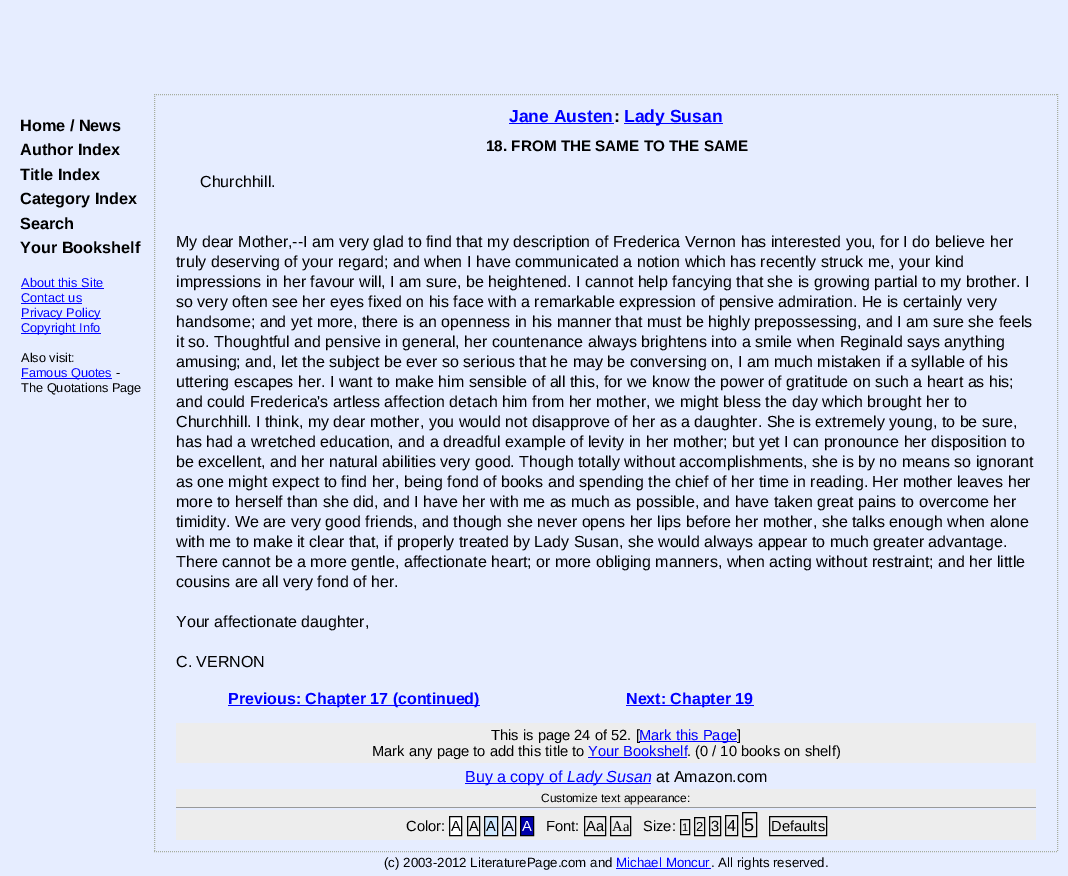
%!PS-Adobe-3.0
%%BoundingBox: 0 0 1068 876
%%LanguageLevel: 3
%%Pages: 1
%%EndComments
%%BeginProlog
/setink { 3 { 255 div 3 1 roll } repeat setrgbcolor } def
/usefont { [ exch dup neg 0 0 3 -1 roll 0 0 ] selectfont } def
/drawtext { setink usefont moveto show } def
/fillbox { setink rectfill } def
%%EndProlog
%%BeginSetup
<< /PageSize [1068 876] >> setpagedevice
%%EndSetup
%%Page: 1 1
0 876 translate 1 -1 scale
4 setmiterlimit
0 0 1068 876 230 237 255 fillbox
(Home / News) 20 131 /LiberationSans-Bold 16.25 0 0 0 drawtext
(Author Index) 20 155 /LiberationSans-Bold 16.25 0 0 0 drawtext
(Title Index) 20 180 /LiberationSans-Bold 16.25 0 0 0 drawtext
(Category Index) 20 204 /LiberationSans-Bold 16.25 0 0 0 drawtext
(Search) 20 229 /LiberationSans-Bold 16.25 0 0 0 drawtext
(Your Bookshelf) 20 253 /LiberationSans-Bold 16.25 0 0 0 drawtext
(About this Site) 21 287 /LiberationSans-Regular 12.75 0 0 255 drawtext
21 288 83 1 0 0 255 fillbox
(Contact us) 21 302 /LiberationSans-Regular 12.75 0 0 255 drawtext
21 303 61 1 0 0 255 fillbox
21 318 80 1 0 0 255 fillbox
(Privacy Policy) 21 317 /LiberationSans-Regular 12.75 0 0 255 drawtext
21 333 80 1 0 0 255 fillbox
(Copyright Info) 21 332 /LiberationSans-Regular 12.75 0 0 255 drawtext
(Also visit:) 21 362 /LiberationSans-Regular 12.75 0 0 0 drawtext
21 378 91 1 0 0 255 fillbox
(Famous Quotes) 21 377 /LiberationSans-Regular 12.75 0 0 255 drawtext
(-) 116 377 /LiberationSans-Regular 12.75 0 0 0 drawtext
(The Quotations Page) 21 392 /LiberationSans-Regular 12.75 0 0 0 drawtext
166 173 159 setink
[1 1] 0 setdash
154 94.5 moveto 1058 94.5 lineto stroke
1057.5 94 moveto 1057.5 852 lineto stroke
154 851.5 moveto 1058 851.5 lineto stroke
154.5 94 moveto 154.5 852 lineto stroke
(Jane Austen) 509 122 /LiberationSans-Bold 17.5 0 0 255 drawtext
509 123 105 1 0 0 255 fillbox
(:) 614 122 /LiberationSans-Bold 17.5 0 0 0 drawtext
624 123 99 1 0 0 255 fillbox
(Lady Susan) 624 122 /LiberationSans-Bold 17.5 0 0 255 drawtext
(18. FROM THE SAME TO THE SAME) 486 151 /LiberationSans-Bold 15.25 0 0 0 drawtext
(Churchhill.) 200 187 /LiberationSans-Regular 16 0 0 0 drawtext
(My dear Mother,--I am very glad to find that my description of Frederica Vernon has interested you, for I do believe her) 176 247 /LiberationSans-Regular 16 0 0 0 drawtext
(truly deserving of your regard; and when I have communicated a notion which has recently struck me, your kind) 176 267 /LiberationSans-Regular 16 0 0 0 drawtext
(impressions in her favour will, I am sure, be heightened. I cannot help fancying that she is growing partial to my brother. I) 176 287 /LiberationSans-Regular 16 0 0 0 drawtext
(so very often see her eyes fixed on his face with a remarkable expression of pensive admiration. He is certainly very) 176 307 /LiberationSans-Regular 16 0 0 0 drawtext
(handsome; and yet more, there is an openness in his manner that must be highly prepossessing, and I am sure she feels) 176 327 /LiberationSans-Regular 16 0 0 0 drawtext
(it so. Thoughtful and pensive in general, her countenance always brightens into a smile when Reginald says anything) 176 347 /LiberationSans-Regular 16 0 0 0 drawtext
(amusing; and, let the subject be ever so serious that he may be conversing on, I am much mistaken if a syllable of his) 176 367 /LiberationSans-Regular 16 0 0 0 drawtext
(uttering escapes her. I want to make him sensible of all this, for we know the power of gratitude on such a heart as his;) 176 387 /LiberationSans-Regular 16 0 0 0 drawtext
(and could Frederica's artless affection detach him from her mother, we might bless the day which brought her to) 176 407 /LiberationSans-Regular 16 0 0 0 drawtext
(Churchhill. I think, my dear mother, you would not disapprove of her as a daughter. She is extremely young, to be sure,) 176 427 /LiberationSans-Regular 16 0 0 0 drawtext
(has had a wretched education, and a dreadful example of levity in her mother; but yet I can pronounce her disposition to) 176 447 /LiberationSans-Regular 16 0 0 0 drawtext
(be excellent, and her natural abilities very good. Though totally without accomplishments, she is by no means so ignorant) 176 467 /LiberationSans-Regular 16 0 0 0 drawtext
(as one might expect to find her, being fond of books and spending the chief of her time in reading. Her mother leaves her) 176 487 /LiberationSans-Regular 16 0 0 0 drawtext
(more to herself than she did, and I have her with me as much as possible, and have taken great pains to overcome her) 176 507 /LiberationSans-Regular 16 0 0 0 drawtext
(timidity. We are very good friends, and though she never opens her lips before her mother, she talks enough when alone) 176 527 /LiberationSans-Regular 16 0 0 0 drawtext
(with me to make it clear that, if properly treated by Lady Susan, she would always appear to much greater advantage.) 176 547 /LiberationSans-Regular 16 0 0 0 drawtext
(There cannot be a more gentle, affectionate heart; or more obliging manners, when acting without restraint; and her little) 176 567 /LiberationSans-Regular 16 0 0 0 drawtext
(cousins are all very fond of her.) 176 587 /LiberationSans-Regular 16 0 0 0 drawtext
(Your affectionate daughter,) 176 627 /LiberationSans-Regular 16 0 0 0 drawtext
(C. VERNON) 176 667 /LiberationSans-Regular 16 0 0 0 drawtext
228 705 252 1 0 0 255 fillbox
(Previous: Chapter 17 \(continued\)) 228 704 /LiberationSans-Bold 16 0 0 255 drawtext
626 705 128 1 0 0 255 fillbox
(Next: Chapter 19) 626 704 /LiberationSans-Bold 16 0 0 255 drawtext
176 723 860 40 237 237 237 fillbox
(This is page 24 of 52. [) 491 740 /LiberationSans-Regular 14.7 0 0 0 drawtext
639 741 98 1 0 0 255 fillbox
(Mark this Page) 639 740 /LiberationSans-Regular 14.7 0 0 255 drawtext
(]) 737 740 /LiberationSans-Regular 14.7 0 0 0 drawtext
(Mark any page to add this title to) 372 756 /LiberationSans-Regular 14.7 0 0 0 drawtext
(Your Bookshelf) 588 756 /LiberationSans-Regular 14.7 0 0 255 drawtext
588 757 99 1 0 0 255 fillbox
(. \(0 / 10 books on shelf\)) 687 756 /LiberationSans-Regular 14.7 0 0 0 drawtext
465 783 186 1 0 0 255 fillbox
(Buy a copy of) 465 782 /LiberationSans-Regular 16 0 0 255 drawtext
(Lady Susan) 567 782 /LiberationSans-Italic 16 0 0 255 drawtext
(at Amazon.com) 656 782 /LiberationSans-Regular 16 0 0 0 drawtext
176 789 860 18 237 237 237 fillbox
176 807 860 1 153 153 153 fillbox
(Customize text appearance:) 541 802 /LiberationSans-Regular 12 0 0 0 drawtext
176 810 860 30 237 237 237 fillbox
(Color:) 406 831 /LiberationSans-Regular 14.7 0 0 0 drawtext
255 255 255 setink
449.5 816.5 moveto 461.5 816.5 lineto 461.5 835.5 lineto 449.5 835.5 lineto closepath gsave fill grestore
0 0 0 setink
[] 0 setdash
stroke
(A) 451 831 /LiberationSans-Regular 14.7 0 0 0 drawtext
240 240 240 setink
467.5 816.5 moveto 479.5 816.5 lineto 479.5 835.5 lineto 467.5 835.5 lineto closepath gsave fill grestore
0 0 0 setink
stroke
(A) 469 831 /LiberationSans-Regular 14.7 0 0 0 drawtext
206 231 255 setink
484.5 816.5 moveto 497.5 816.5 lineto 497.5 835.5 lineto 484.5 835.5 lineto closepath gsave fill grestore
0 0 0 setink
stroke
(A) 486 831 /LiberationSans-Regular 14.7 0 0 0 drawtext
230 237 255 setink
502.5 816.5 moveto 515.5 816.5 lineto 515.5 835.5 lineto 502.5 835.5 lineto closepath gsave fill grestore
0 0 0 setink
stroke
(A) 504 831 /LiberationSans-Regular 14.7 0 0 0 drawtext
0 0 170 setink
520.5 816.5 moveto 533.5 816.5 lineto 533.5 835.5 lineto 520.5 835.5 lineto closepath gsave fill grestore
0 0 0 setink
stroke
(A) 522 831 /LiberationSans-Regular 14.7 255 255 255 drawtext
(Font:) 546 831 /LiberationSans-Regular 14.7 0 0 0 drawtext
584.5 816.5 21 19 rectstroke
(Aa) 586 831 /LiberationSans-Regular 14.7 0 0 0 drawtext
610.5 816.5 20 19 rectstroke
(Aa) 612 831 /LiberationSerif-Regular 14.7 0 0 0 drawtext
(Size:) 643 831 /LiberationSans-Regular 14.7 0 0 0 drawtext
680.5 819.5 9 15 rectstroke
(1) 682 831 /LiberationSans-Regular 11 0 0 0 drawtext
694.5 817.5 10 18 rectstroke
(2) 696 831 /LiberationSans-Regular 13 0 0 0 drawtext
709.5 816.5 11 19 rectstroke
(3) 711 831 /LiberationSans-Regular 14.7 0 0 0 drawtext
725.5 815.5 12 20 rectstroke
(4) 727 831 /LiberationSans-Regular 16 0 0 0 drawtext
742.5 812.5 14 24 rectstroke
(5) 744 831 /LiberationSans-Regular 18 0 0 0 drawtext
769.5 816.5 57 19 rectstroke
(Defaults) 771 831 /LiberationSans-Regular 14.7 0 0 0 drawtext
(\(c\) 2003-2012 LiteraturePage.com and) 384 867 /LiberationSans-Regular 13.3 0 0 0 drawtext
(Michael Moncur) 616 867 /LiberationSans-Regular 13.3 0 0 255 drawtext
(. All rights reserved.) 711 867 /LiberationSans-Regular 13.3 0 0 0 drawtext
616 868 95 1 0 0 255 fillbox
showpage
%%EOF
